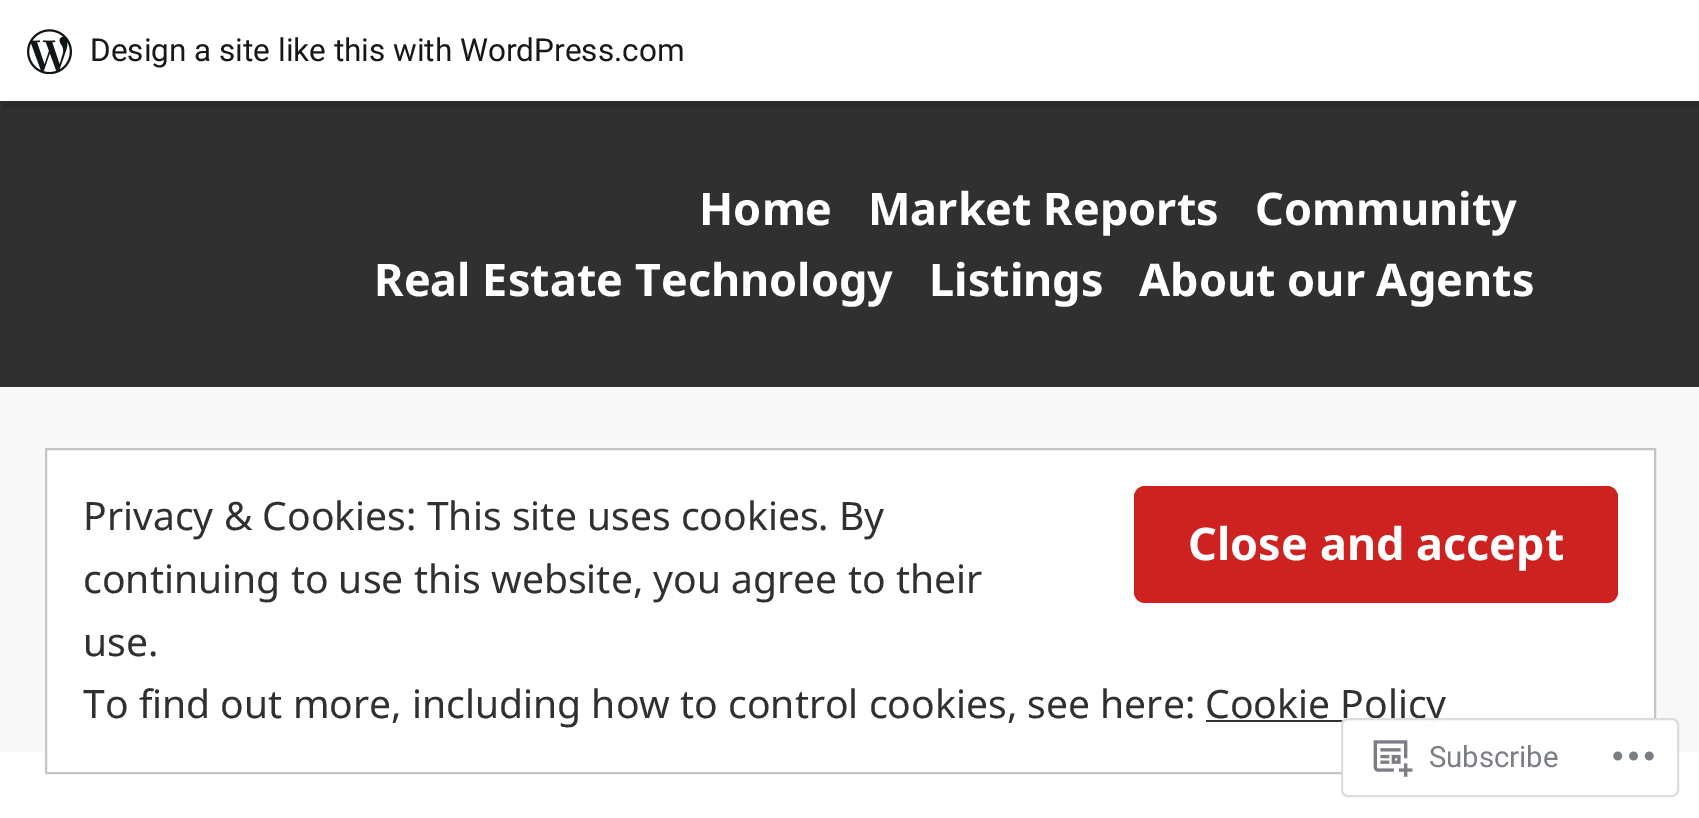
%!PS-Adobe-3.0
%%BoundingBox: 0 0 1699 818
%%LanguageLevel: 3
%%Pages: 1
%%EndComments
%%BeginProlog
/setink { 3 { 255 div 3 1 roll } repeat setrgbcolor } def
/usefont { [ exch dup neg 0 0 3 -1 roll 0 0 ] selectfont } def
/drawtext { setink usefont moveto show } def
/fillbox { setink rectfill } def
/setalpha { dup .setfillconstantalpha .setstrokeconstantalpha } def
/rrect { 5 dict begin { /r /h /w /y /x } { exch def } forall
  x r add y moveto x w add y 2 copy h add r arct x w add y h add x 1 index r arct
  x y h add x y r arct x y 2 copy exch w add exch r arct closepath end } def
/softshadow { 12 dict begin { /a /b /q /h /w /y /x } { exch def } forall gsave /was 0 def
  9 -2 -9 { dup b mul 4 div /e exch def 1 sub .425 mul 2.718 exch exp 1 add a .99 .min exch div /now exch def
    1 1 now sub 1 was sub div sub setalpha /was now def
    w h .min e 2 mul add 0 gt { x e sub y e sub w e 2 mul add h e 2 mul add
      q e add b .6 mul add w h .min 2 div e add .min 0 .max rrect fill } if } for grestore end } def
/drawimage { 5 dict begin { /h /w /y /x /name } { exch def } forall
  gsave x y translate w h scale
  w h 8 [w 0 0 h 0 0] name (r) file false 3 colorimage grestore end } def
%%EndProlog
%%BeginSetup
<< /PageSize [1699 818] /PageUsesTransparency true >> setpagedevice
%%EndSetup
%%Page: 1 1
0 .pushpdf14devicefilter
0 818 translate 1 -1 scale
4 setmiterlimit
0 0 1699 818 255 255 255 fillbox
0 101 1699 286 48 48 48 fillbox
0 0 0 setink
0 2 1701 102 0 2 0.05 softshadow
43 43 43 setink
2 101 moveto 2 108 lineto 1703 108 lineto 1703 7 lineto 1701 7 lineto 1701 101 lineto closepath fill
0 0 1699 101 255 255 255 fillbox
(assets/img1.rgb) 27 29 45 45 drawimage
(Design a site like this with WordPress.com) 90 61 /Roboto-Regular 31.5 23 23 23 drawtext
(Home) 699 225 /NotoSans-Bold 45 255 255 255 drawtext
(Market Reports) 868 225 /NotoSans-Bold 45 255 255 255 drawtext
(Community) 1255 225 /NotoSans-Bold 45 255 255 255 drawtext
(Real Estate Technology) 374 296 /NotoSans-Bold 45 255 255 255 drawtext
(Listings) 929 296 /NotoSans-Bold 45 255 255 255 drawtext
(About our Agents) 1139 296 /NotoSans-Bold 45 255 255 255 drawtext
0 387 1699 365 248 248 248 fillbox
47 450 1607 302 255 255 255 fillbox
197 197 197 setink
2 setlinewidth
46 449 1609 324 rectstroke
(Privacy & Cookies: This site uses cookies. By) 83 530 /NotoSans-Regular 39.1 48 48 48 drawtext
205 34 32 setink
1134 486 484 117 11 rrect fill
(Close and accept) 1188 560 /NotoSans-Bold 45 255 255 255 drawtext
(continuing to use this website, you agree to their) 83 593 /NotoSans-Regular 39.1 48 48 48 drawtext
(use.) 83 656 /NotoSans-Regular 39.1 48 48 48 drawtext
(To find out more, including how to control cookies, see here:) 83 718 /NotoSans-Regular 39.1 48 48 48 drawtext
1206 720 241 2 48 48 48 fillbox
(Cookie Policy) 1205 718 /NotoSans-Regular 39.1 48 48 48 drawtext
0.98 setalpha
255 255 255 setink
1341 718 338 79 7 rrect fill
220 220 222 setink
1342 719 336 77 6 rrect stroke
1 setalpha
(assets/img2.rgb) 1373 740 40 37 drawimage
(Subscribe) 1429 767 /Roboto-Regular 29.25 123 127 133 drawtext
(assets/img3.rgb) 1613 751 41 10 drawimage
.poppdf14devicefilter showpage
%%EOF
